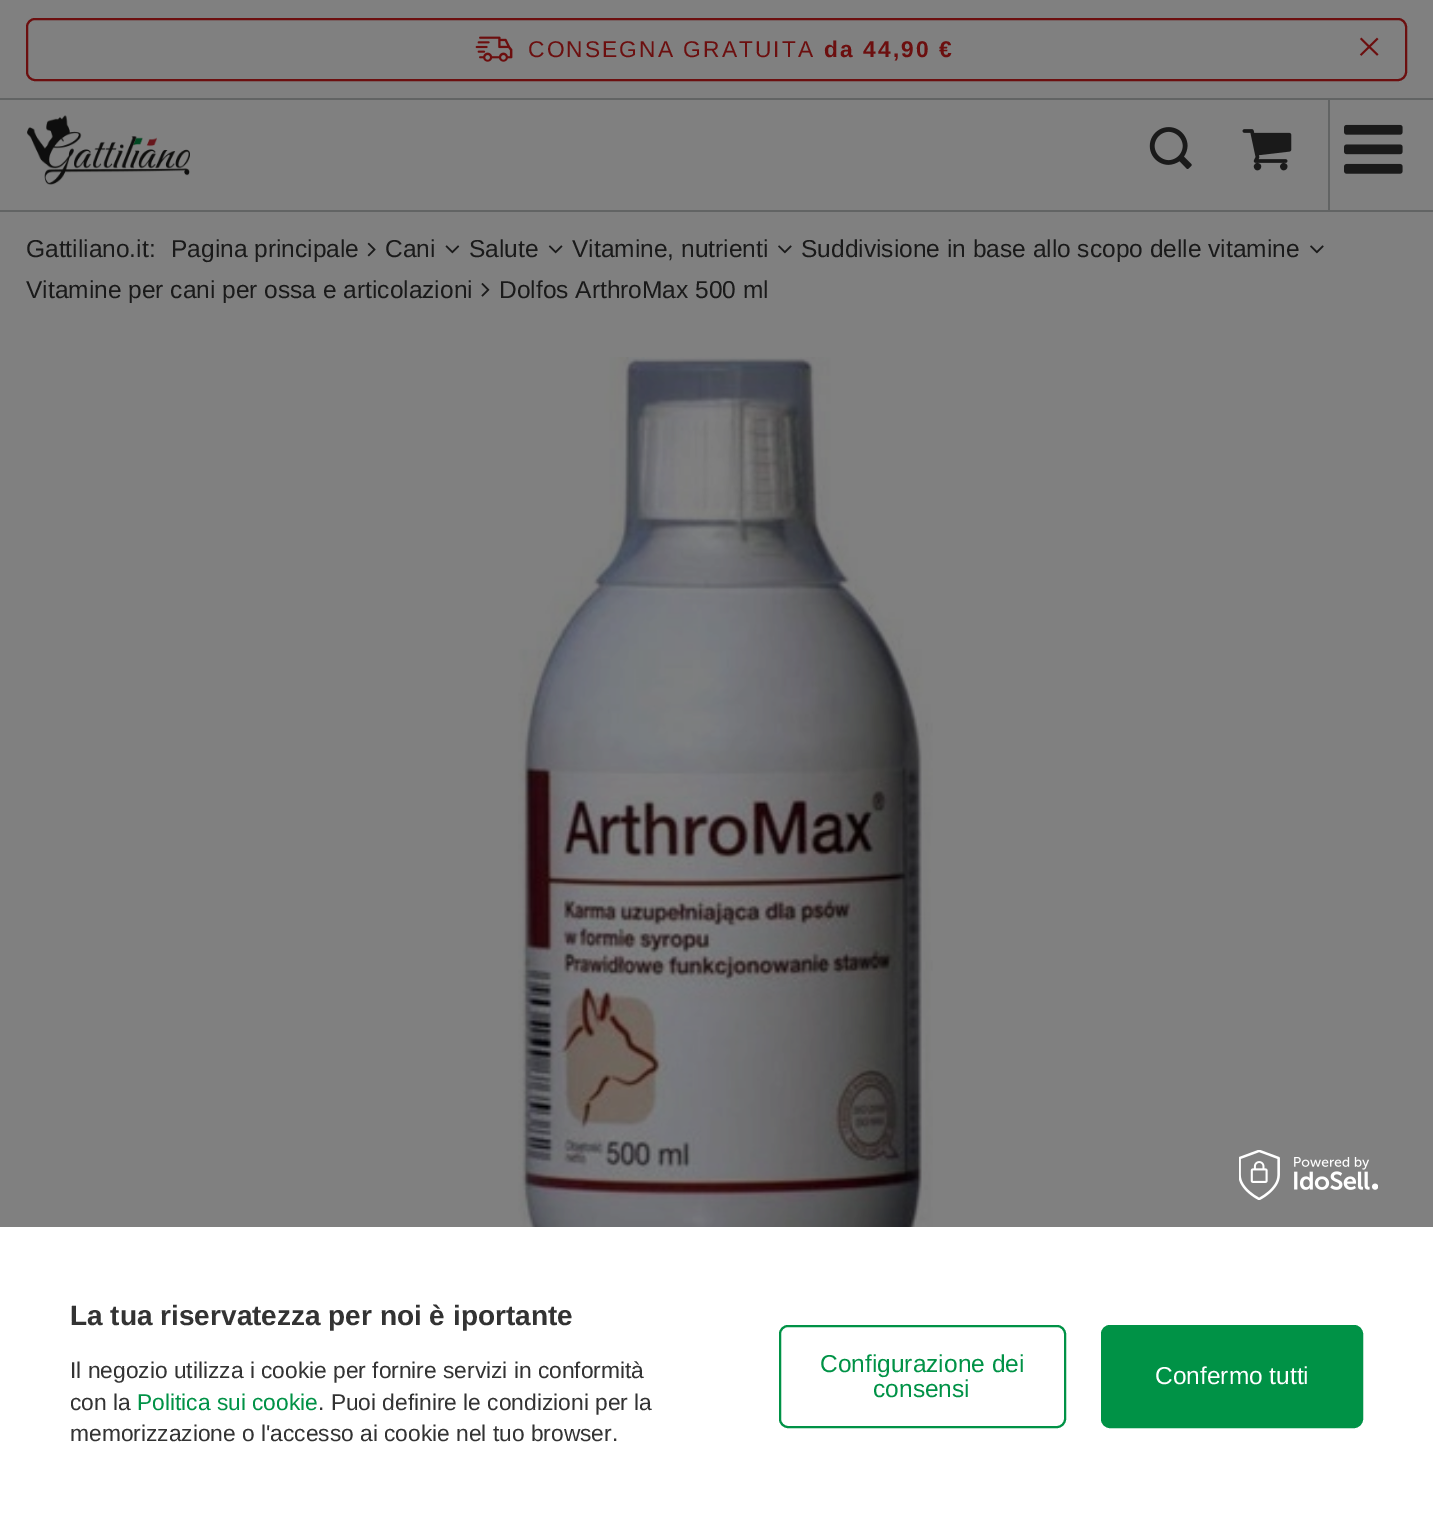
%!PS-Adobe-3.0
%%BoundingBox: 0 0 1433 1523
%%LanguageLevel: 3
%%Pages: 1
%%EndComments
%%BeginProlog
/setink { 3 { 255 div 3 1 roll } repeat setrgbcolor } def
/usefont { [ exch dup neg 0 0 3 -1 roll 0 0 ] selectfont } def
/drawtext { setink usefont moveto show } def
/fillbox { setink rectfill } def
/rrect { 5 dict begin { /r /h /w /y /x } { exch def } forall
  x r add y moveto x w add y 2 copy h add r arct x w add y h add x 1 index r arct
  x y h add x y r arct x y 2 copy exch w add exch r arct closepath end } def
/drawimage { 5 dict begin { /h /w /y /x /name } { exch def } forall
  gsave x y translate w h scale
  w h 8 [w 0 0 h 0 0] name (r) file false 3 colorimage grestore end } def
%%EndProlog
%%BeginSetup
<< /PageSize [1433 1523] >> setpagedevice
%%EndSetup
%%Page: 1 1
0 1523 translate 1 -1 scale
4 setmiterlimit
0 0 1433 1523 128 128 128 fillbox
0 210 1433 2 98 100 100 fillbox
108 15 15 setink
2 setlinewidth
27 19 1379 61 8 rrect stroke
(assets/img1.rgb) 475 36 38 26 drawimage
/LiberationSans-Regular 22.75 usefont
528 57 moveto 2.1 0 (CONSEGNA GRATUITA) ashow
/LiberationSans-Bold 22.75 usefont
824 57 moveto 2.1 0 (da 44,90 €) ashow
(assets/img2.rgb) 1359 37 20 19 drawimage
1328 98 2 112 98 100 100 fillbox
0 98 1433 2 98 100 100 fillbox
(assets/img3.rgb) 27 115 163 70 drawimage
(assets/img4.rgb) 1149 127 43 42 drawimage
(assets/img5.rgb) 1242 129 50 42 drawimage
(assets/img6.rgb) 1344 124 59 50 drawimage
(Gattiliano.it:) 26 257 /LiberationSans-Regular 24.5 26 26 26 drawtext
(Pagina principale) 171 257 /LiberationSans-Regular 24.5 26 26 26 drawtext
(assets/img7.rgb) 367 242 9 15 drawimage
(Cani) 385 257 /LiberationSans-Regular 24.5 26 26 26 drawtext
(assets/img8.rgb) 445 245 15 9 drawimage
(Salute) 469 257 /LiberationSans-Regular 24.5 26 26 26 drawtext
(assets/img9.rgb) 548 245 15 9 drawimage
(Vitamine, nutrienti) 572 257 /LiberationSans-Regular 24.5 26 26 26 drawtext
(assets/img10.rgb) 778 245 14 9 drawimage
(Suddivisione in base allo scopo delle vitamine) 801 257 /LiberationSans-Regular 24.5 26 26 26 drawtext
(assets/img10.rgb) 1310 245 14 9 drawimage
(Vitamine per cani per ossa e articolazioni) 26 298 /LiberationSans-Regular 24.5 26 26 26 drawtext
(assets/img11.rgb) 481 283 9 14 drawimage
(Dolfos ArthroMax 500 ml) 499 298 /LiberationSans-Regular 24.5 26 26 26 drawtext
(assets/img12.rgb) 518 357 415 870 drawimage
0 1227 1433 296 255 255 255 fillbox
(assets/img13.rgb) 1239 1150 139 50 drawimage
(La tua riservatezza per noi è iportante) 70 1325 /LiberationSans-Bold 28 51 51 51 drawtext
(Il negozio utilizza i cookie per fornire servizi in conformità) 70 1378 /LiberationSans-Regular 22.75 51 51 51 drawtext
(con la) 70 1410 /LiberationSans-Regular 22.75 51 51 51 drawtext
(Politica sui cookie) 137 1410 /LiberationSans-Regular 22.75 0 146 70 drawtext
(. Puoi definire le condizioni per la) 318 1410 /LiberationSans-Regular 22.75 51 51 51 drawtext
(memorizzazione o l'accesso ai cookie nel tuo browser.) 70 1441 /LiberationSans-Regular 22.75 51 51 51 drawtext
0 146 70 setink
780 1326 285 101 8 rrect stroke
(Configurazione dei) 820 1372 /LiberationSans-Regular 24.5 0 146 70 drawtext
(consensi) 873 1397 /LiberationSans-Regular 24.5 0 146 70 drawtext
1102 1326 260 101 8 rrect gsave fill grestore
stroke
(Confermo tutti) 1155 1384 /LiberationSans-Regular 24.5 255 255 255 drawtext
showpage
%%EOF
